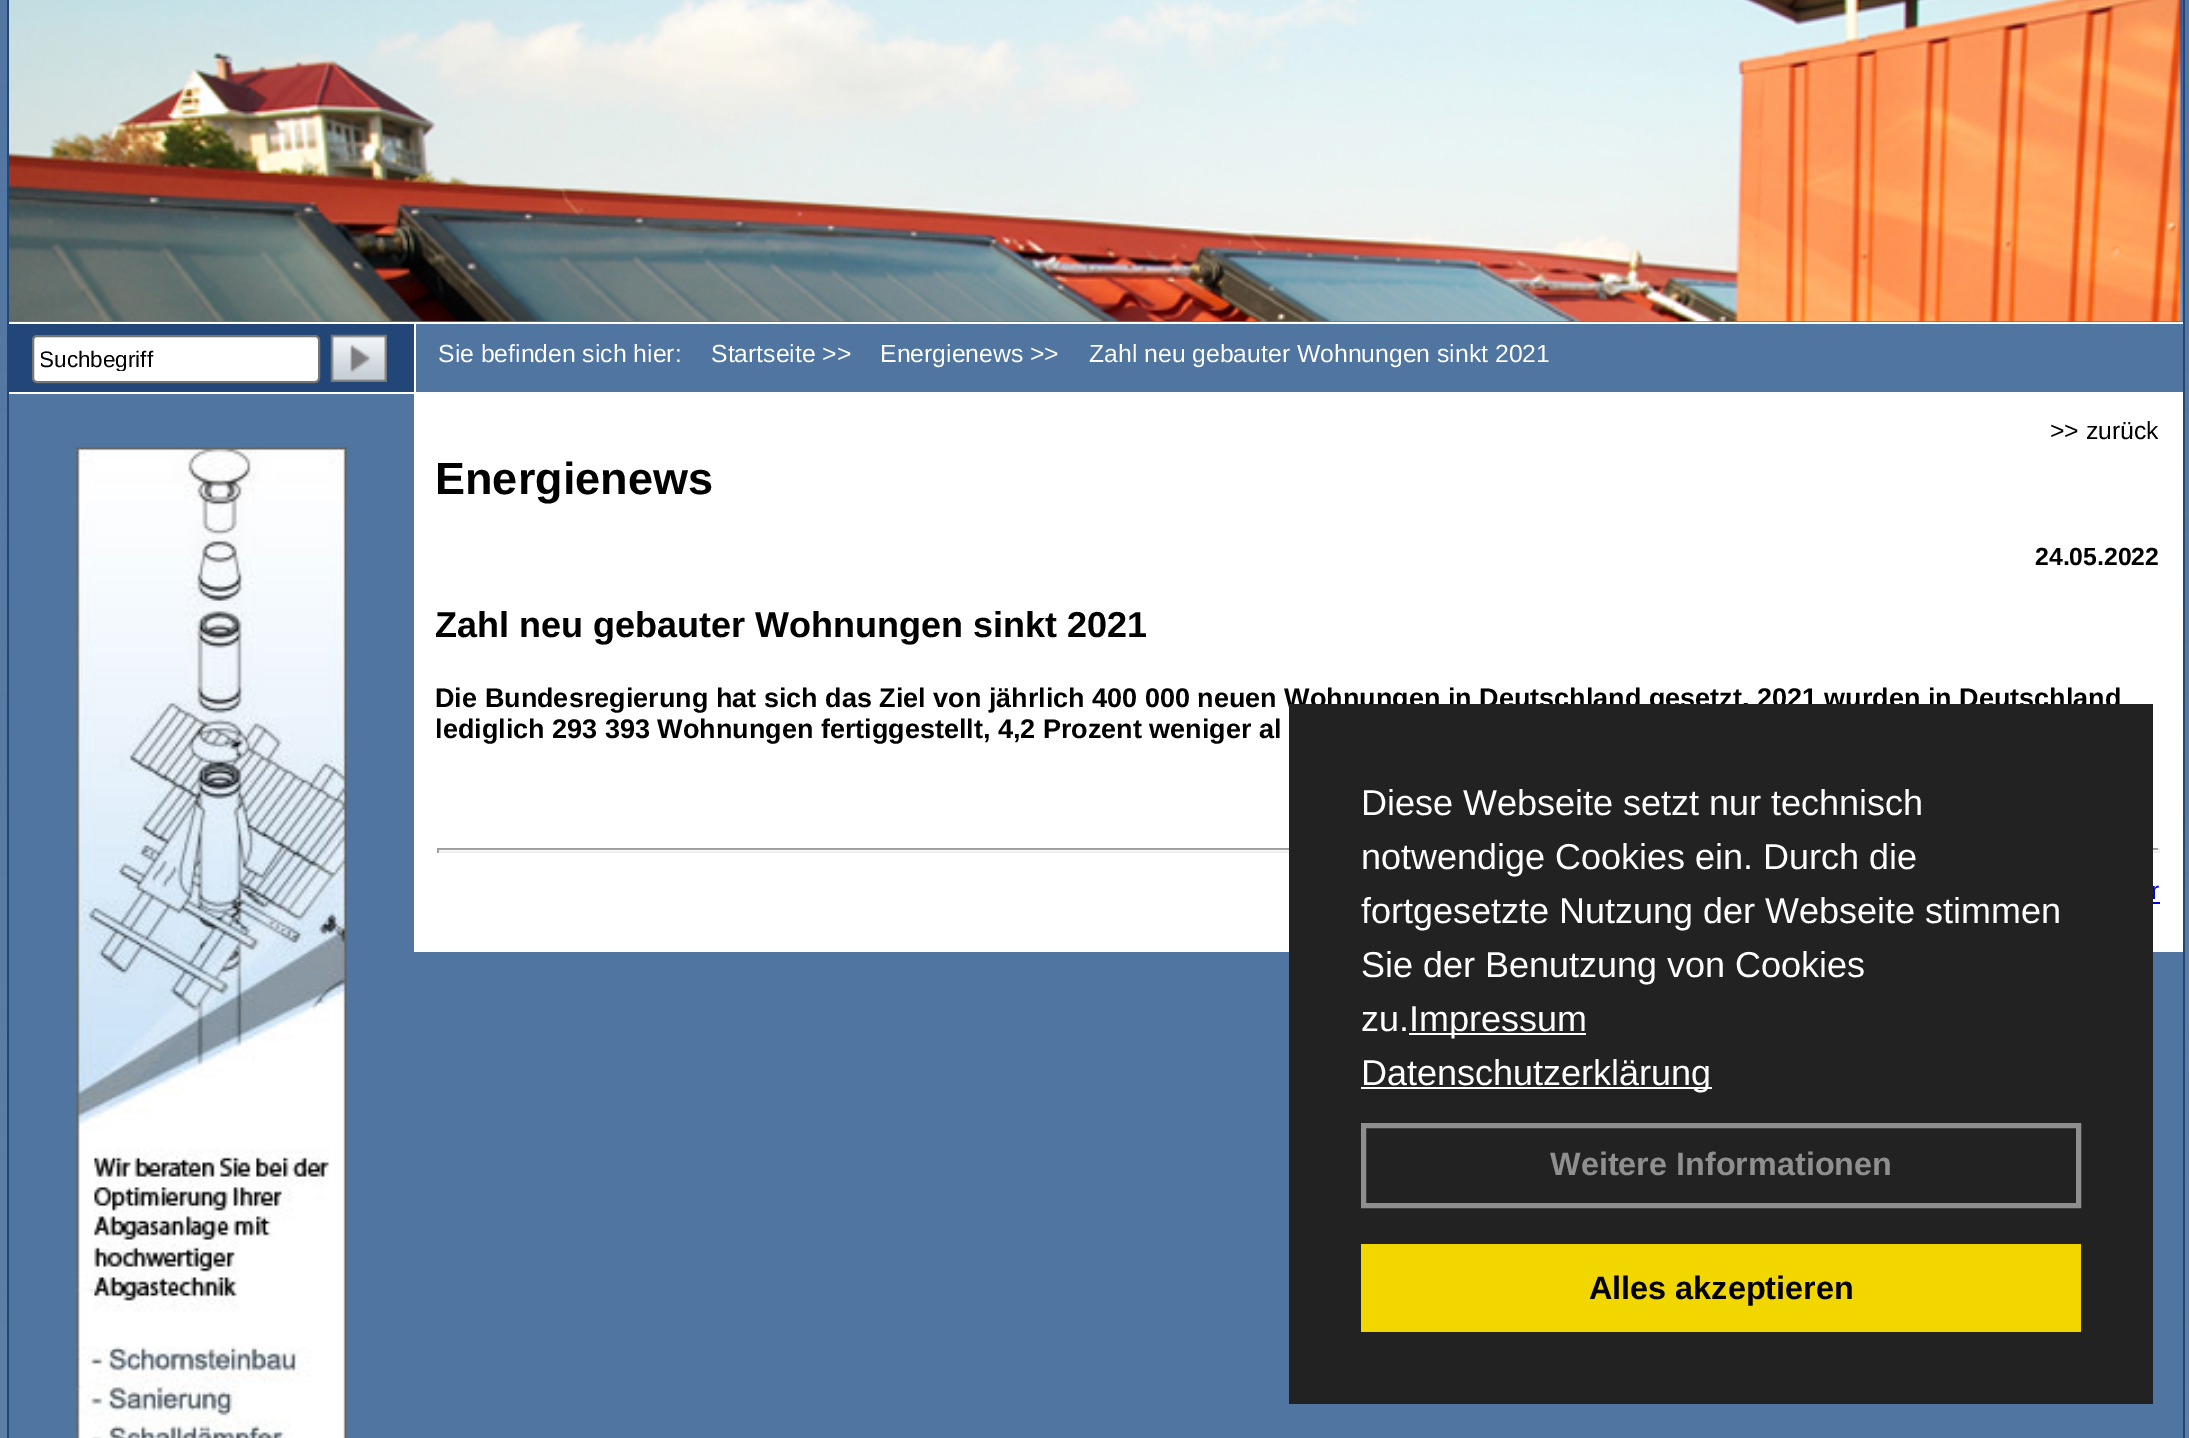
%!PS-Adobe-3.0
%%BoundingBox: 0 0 2189 1438
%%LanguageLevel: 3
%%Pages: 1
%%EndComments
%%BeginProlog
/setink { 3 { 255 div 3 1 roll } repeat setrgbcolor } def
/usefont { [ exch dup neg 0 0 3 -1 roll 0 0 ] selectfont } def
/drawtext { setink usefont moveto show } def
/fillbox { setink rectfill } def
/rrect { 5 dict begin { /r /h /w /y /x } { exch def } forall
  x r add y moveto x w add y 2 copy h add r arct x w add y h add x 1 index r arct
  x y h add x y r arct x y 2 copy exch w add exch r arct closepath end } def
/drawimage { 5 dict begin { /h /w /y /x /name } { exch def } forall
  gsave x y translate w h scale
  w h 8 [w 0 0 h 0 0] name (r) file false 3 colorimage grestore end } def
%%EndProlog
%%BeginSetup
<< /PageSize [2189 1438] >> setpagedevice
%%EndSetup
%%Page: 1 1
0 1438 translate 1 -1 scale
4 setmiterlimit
0 0 2189 1438 255 255 255 fillbox
(assets/img1.rgb) 0 0 2189 1438 drawimage
2183 0 2 1438 34 70 120 fillbox
7 0 2 1438 34 70 120 fillbox
(assets/img2.rgb) 9 0 2174 322 drawimage
9 324 405 68 34 70 120 fillbox
9 322 2174 2 255 255 255 fillbox
414 322 2 72 255 255 255 fillbox
9 392 2174 2 255 255 255 fillbox
33 336 286 46 4 rrect gsave fill grestore
118 118 118 setink
2 setlinewidth
stroke
gsave
41 347 270 24 rectclip
(Suchbegriff) 39 367 /LiberationSans-Regular 22.5 0 0 0 drawtext
grestore
(assets/img3.rgb) 330 334 57 48 drawimage
416 324 1767 68 80 117 161 fillbox
(Sie befinden sich hier:) 438 362 /LiberationSans-Regular 24.75 255 255 255 drawtext
(Startseite >>) 711 362 /LiberationSans-Regular 24.75 255 255 255 drawtext
(Energienews >>) 880 362 /LiberationSans-Regular 24.75 255 255 255 drawtext
(Zahl neu gebauter Wohnungen sinkt 2021) 1089 362 /LiberationSans-Regular 24.75 255 255 255 drawtext
9 394 2174 1044 80 117 161 fillbox
(assets/img4.rgb) 76 447 271 991 drawimage
414 394 1769 558 255 255 255 fillbox
(>> zurück) 2050 439 /LiberationSans-Regular 24.75 0 0 0 drawtext
(Energienews) 435 494 /LiberationSans-Bold 45 0 0 0 drawtext
(24.05.2022) 2035 565 /LiberationSans-Bold 24.75 0 0 0 drawtext
(Zahl neu gebauter Wohnungen sinkt 2021) 435 637 /LiberationSans-Bold 36 0 0 0 drawtext
(Die Bundesregierung hat sich das Ziel von jährlich 400 000 neuen Wohnungen in Deutschland gesetzt. 2021 wurden in Deutschland) 435 707 /LiberationSans-Bold 27 0 0 0 drawtext
(lediglich 293 393 Wohnungen fertiggestellt, 4,2 Prozent weniger al) 435 738 /LiberationSans-Bold 27 0 0 0 drawtext
437 848 1723 2 159 159 159 fillbox
2158 848 2 5 238 238 238 fillbox
437 851 1723 2 238 238 238 fillbox
437 848 2 5 159 159 159 fillbox
(r) 2151 899 /LiberationSans-Regular 24.75 0 0 238 drawtext
2153 902 7 2 0 0 238 fillbox
1289 704 864 700 34 34 34 fillbox
(Diese Webseite setzt nur technisch) 1361 815 /LiberationSans-Regular 36 255 255 255 drawtext
(notwendige Cookies ein. Durch die) 1361 869 /LiberationSans-Regular 36 255 255 255 drawtext
(fortgesetzte Nutzung der Webseite stimmen) 1361 923 /LiberationSans-Regular 36 255 255 255 drawtext
(Sie der Benutzung von Cookies) 1361 977 /LiberationSans-Regular 36 255 255 255 drawtext
(zu.) 1361 1031 /LiberationSans-Regular 36 255 255 255 drawtext
1409 1033 177 2 255 255 255 fillbox
(Impressum) 1409 1031 /LiberationSans-Regular 36 255 255 255 drawtext
1361 1087 351 2 255 255 255 fillbox
(Datenschutzerklärung) 1361 1085 /LiberationSans-Regular 36 255 255 255 drawtext
143 143 143 setink
5 setlinewidth
1363.5 1125.5 715 80 rectstroke
(Weitere Informationen) 1550 1175 /LiberationSans-Bold 32.4 143 143 143 drawtext
1361 1244 720 88 241 214 0 fillbox
(Alles akzeptieren) 1589 1299 /LiberationSans-Bold 32.4 0 0 0 drawtext
showpage
%%EOF
